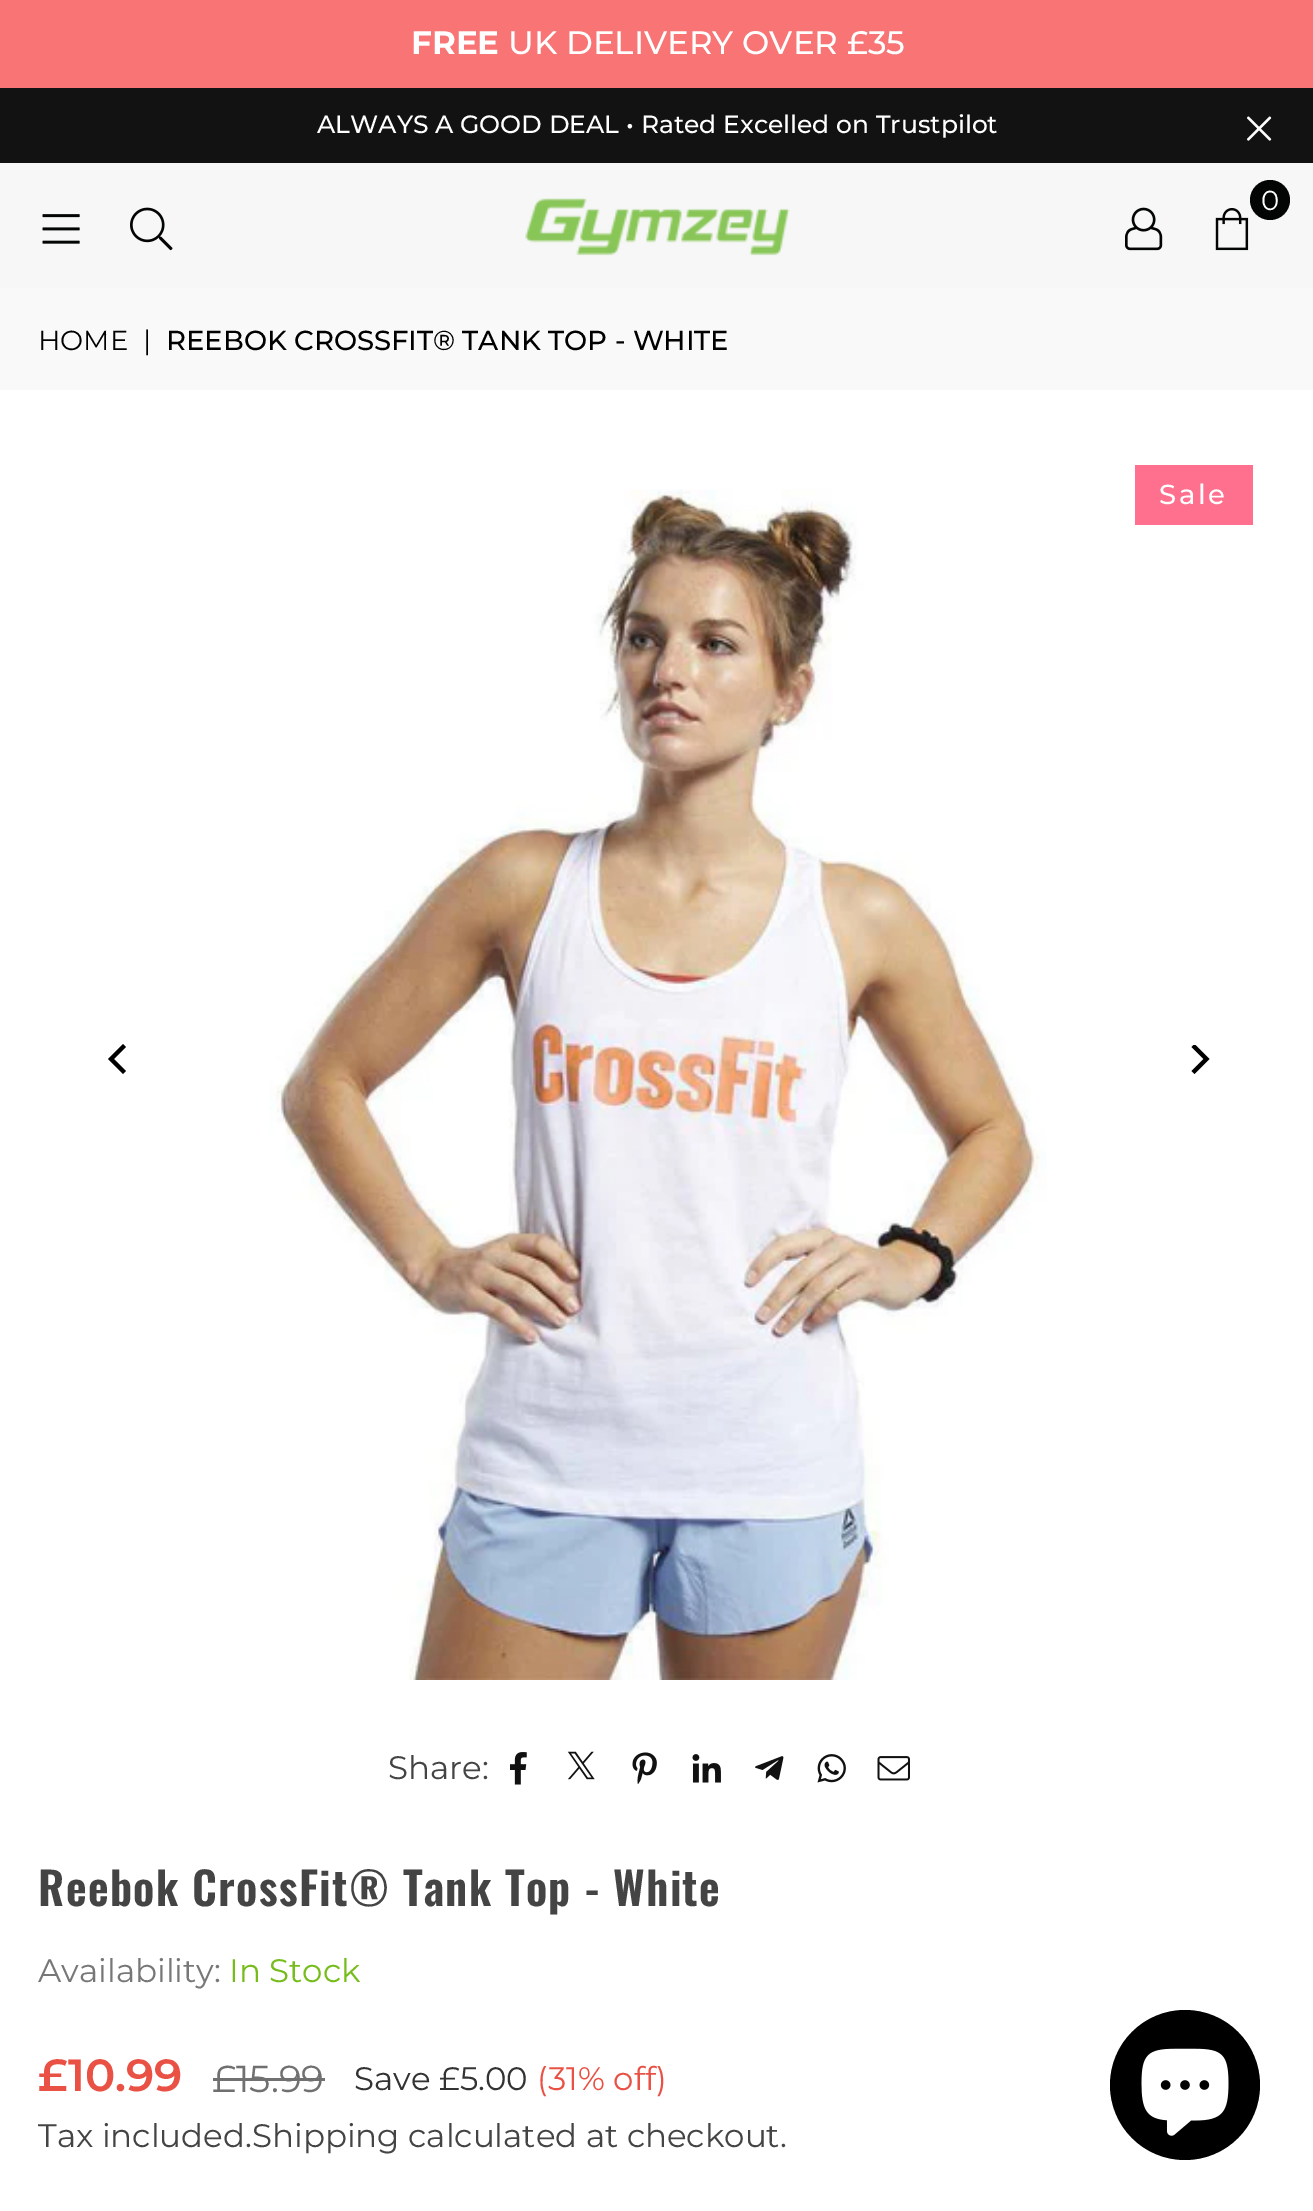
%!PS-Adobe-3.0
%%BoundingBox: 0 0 1313 2211
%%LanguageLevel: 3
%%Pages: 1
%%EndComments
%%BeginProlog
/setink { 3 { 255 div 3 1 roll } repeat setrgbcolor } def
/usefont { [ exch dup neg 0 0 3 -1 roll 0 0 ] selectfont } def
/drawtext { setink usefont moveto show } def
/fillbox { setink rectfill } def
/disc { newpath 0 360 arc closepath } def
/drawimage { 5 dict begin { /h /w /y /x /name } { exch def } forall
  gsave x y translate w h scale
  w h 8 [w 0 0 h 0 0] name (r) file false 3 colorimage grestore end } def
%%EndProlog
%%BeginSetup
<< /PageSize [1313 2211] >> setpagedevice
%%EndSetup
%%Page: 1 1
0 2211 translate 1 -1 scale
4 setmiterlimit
0 0 1313 2211 255 255 255 fillbox
0 0 1313 88 248 116 117 fillbox
(FREE) 411 54 /Montserrat-Bold 32.5 255 255 255 drawtext
(UK DELIVERY OVER £35) 508 54 /Montserrat-Medium 32.5 255 255 255 drawtext
0 88 1313 75 18 18 18 fillbox
(ALWAYS A GOOD DEAL • Rated Excelled on Trustpilot) 317 133 /Montserrat-Medium 25 255 255 255 drawtext
(assets/img1.rgb) 1247 116 25 25 drawimage
0 163 1313 125 247 247 247 fillbox
(assets/img2.rgb) 42 214 38 30 drawimage
(assets/img3.rgb) 130 207 43 44 drawimage
(assets/img4.rgb) 525 198 265 58 drawimage
3 5 5 setink
1270 200 20 disc fill
(0) 1261 210 /Montserrat-Regular 27.5 255 255 255 drawtext
(assets/img5.rgb) 1215 208 34 43 drawimage
(assets/img6.rgb) 1125 207 38 44 drawimage
0 288 1313 102 249 249 249 fillbox
(HOME) 38 350 /Montserrat-Regular 27.5 0 0 0 drawtext
(|) 143 350 /Montserrat-Regular 27.5 0 0 0 drawtext
(REEBOK CROSSFIT® TANK TOP - WHITE) 166 350 /Montserrat-Medium 27.5 0 0 0 drawtext
1135 465 118 60 255 112 142 fillbox
255 255 255 setink
1159 504 moveto 2.5 0 (Sale) ashow
0 0 0 setink
108 1059 moveto 123 1074 lineto 126 1071 lineto 114 1059 lineto 126 1047 lineto 123 1044 lineto closepath fill
(assets/img7.rgb) 269 489 778 1191 drawimage
gsave
1183 1045 30 30 rectclip
1209.5 1059 moveto 1194.5 1044 lineto 1191.5 1047 lineto 1203.5 1059 lineto 1191.5 1071 lineto 1194.5 1074 lineto closepath fill
grestore
(Share:) 388 1779 /Montserrat-Regular 32.5 68 68 68 drawtext
(assets/img8.rgb) 510 1752 17 33 drawimage
(assets/img9.rgb) 567 1751 28 29 drawimage
(assets/img10.rgb) 632 1752 25 32 drawimage
(assets/img11.rgb) 692 1754 29 29 drawimage
(assets/img12.rgb) 755 1756 29 24 drawimage
(assets/img13.rgb) 817 1754 29 29 drawimage
(assets/img14.rgb) 877 1756 33 25 drawimage
/Oswald-SemiBold 45 usefont
38 1906 moveto 1.35 0 (Reebok CrossFit® Tank Top - White) ashow
(Availability:) 38 1982 /Montserrat-Regular 32.5 119 119 119 drawtext
(In Stock) 229 1982 /Montserrat-Regular 32.5 118 189 28 drawtext
(£10.99) 38 2091 /Montserrat-SemiBold 45 233 81 68 drawtext
(£15.99) 212 2092 /Montserrat-Regular 37.5 112 112 112 drawtext
213 2078 112 3 112 112 112 fillbox
(Save £5.00) 354 2090 /Montserrat-Regular 32.5 51 51 51 drawtext
(\(31% off\)) 537 2090 /Montserrat-Regular 32.5 233 81 68 drawtext
(Tax included.Shipping calculated at checkout.) 38 2147 /Montserrat-Regular 32.5 68 68 68 drawtext
0 0 0 setink
1185 2085 75 disc fill
(assets/img15.rgb) 1141 2048 88 88 drawimage
showpage
%%EOF
